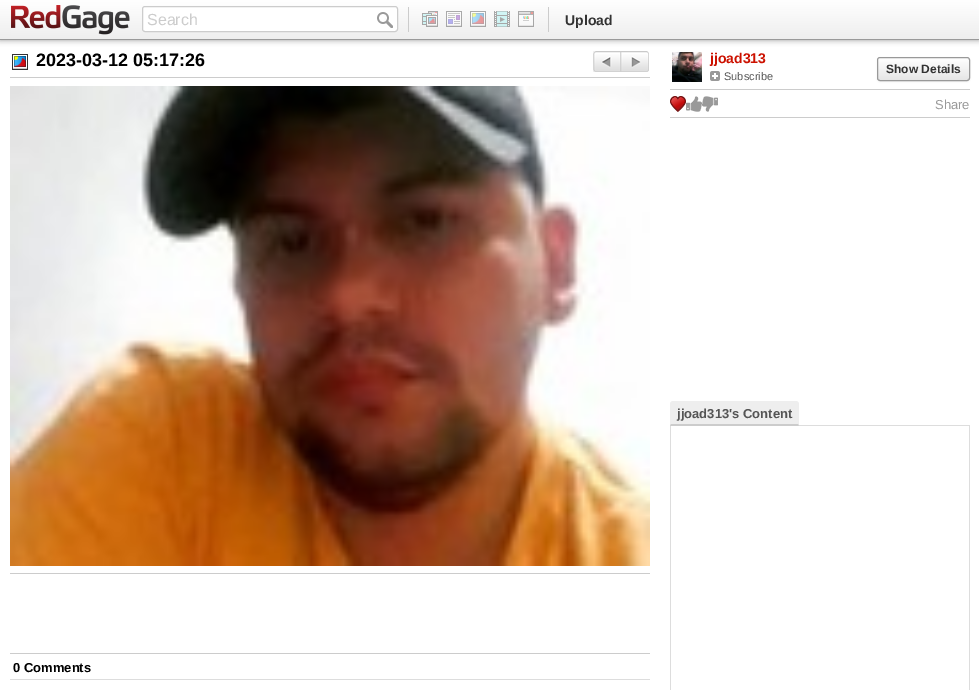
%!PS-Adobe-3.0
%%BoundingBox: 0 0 979 690
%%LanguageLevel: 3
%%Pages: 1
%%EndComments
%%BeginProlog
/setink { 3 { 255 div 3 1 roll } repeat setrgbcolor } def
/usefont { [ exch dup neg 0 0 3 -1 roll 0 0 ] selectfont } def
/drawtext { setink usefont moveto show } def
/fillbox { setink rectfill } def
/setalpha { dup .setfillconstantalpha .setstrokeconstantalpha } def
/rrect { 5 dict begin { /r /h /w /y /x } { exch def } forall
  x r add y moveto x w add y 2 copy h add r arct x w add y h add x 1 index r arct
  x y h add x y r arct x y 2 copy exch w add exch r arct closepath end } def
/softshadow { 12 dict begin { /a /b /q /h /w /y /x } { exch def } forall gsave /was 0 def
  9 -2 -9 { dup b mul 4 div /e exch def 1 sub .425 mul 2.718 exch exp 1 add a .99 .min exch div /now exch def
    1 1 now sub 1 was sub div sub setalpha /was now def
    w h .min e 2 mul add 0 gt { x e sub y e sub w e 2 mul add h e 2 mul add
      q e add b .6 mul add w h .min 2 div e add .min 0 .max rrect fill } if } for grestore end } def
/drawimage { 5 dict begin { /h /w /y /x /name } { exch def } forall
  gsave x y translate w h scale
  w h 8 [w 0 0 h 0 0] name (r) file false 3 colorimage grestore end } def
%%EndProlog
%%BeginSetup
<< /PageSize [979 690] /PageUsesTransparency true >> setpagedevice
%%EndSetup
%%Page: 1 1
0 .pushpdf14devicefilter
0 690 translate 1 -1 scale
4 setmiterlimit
0 0 979 690 255 255 255 fillbox
0 0 0 setink
0 0 979 40 0 3 0.4 softshadow
gsave 0 0 moveto 979 0 lineto 979 39 lineto 0 39 lineto closepath clip newpath
<< /ShadingType 2 /ColorSpace /DeviceRGB /Coords [490 0 490 39] /Extend [true true] /Function << /FunctionType 2 /Domain [0 1] /C0 [1 1 1] /C1 [0.933 0.933 0.933] /N 1 >> >> shfill grestore
0 39 979 1 153 153 153 fillbox
(assets/img1.rgb) 11 5 119 30 drawimage
255 255 255 setink
142.5 6.5 255 25 2.5 rrect gsave fill grestore
204 204 204 setink
stroke
(Search) 147 25 /LiberationSans-Regular 16 204 204 204 drawtext
(assets/img2.rgb) 377 12 16 16 drawimage
548 7 1 25 204 204 204 fillbox
408 7 1 25 204 204 204 fillbox
(assets/img3.rgb) 422 11 16 16 drawimage
(assets/img4.rgb) 446 11 16 16 drawimage
(assets/img5.rgb) 470 11 16 16 drawimage
(assets/img6.rgb) 494 11 16 16 drawimage
(assets/img7.rgb) 518 11 16 16 drawimage
(Upload) 565 25 /LiberationSans-Bold 14 51 51 51 drawtext
10 77 640 1 204 204 204 fillbox
(assets/img8.rgb) 12 54 16 16 drawimage
(2023-03-12 05:17:26) 36 66 /LiberationSans-Bold 18 0 0 0 drawtext
(assets/img9.rgb) 593 51 27 21 drawimage
(assets/img10.rgb) 620 51 29 21 drawimage
(assets/img11.rgb) 10 86 640 480 drawimage
10 573 640 1 204 204 204 fillbox
10 653 640 1 204 204 204 fillbox
10 679 640 1 221 221 221 fillbox
(0 Comments) 13 672 /LiberationSans-Bold 13 0 0 0 drawtext
(assets/img12.rgb) 672 52 30 30 drawimage
(jjoad313) 710 63 /LiberationSans-Bold 14 204 17 0 drawtext
(assets/img13.rgb) 710 71 10 10 drawimage
(Subscribe) 724 80 /LiberationSans-Regular 11 85 85 85 drawtext
0 0 0 setink
877 58 93 24 3 1 0.05 softshadow
gsave
877 57 93 24 3 rrect clip newpath
gsave 877 58 moveto 970 58 lineto 970 80 lineto 877 80 lineto closepath clip newpath
<< /ShadingType 2 /ColorSpace /DeviceRGB /Coords [924 58 924 80] /Extend [true true] /Function << /FunctionType 2 /Domain [0 1] /C0 [1 1 1] /C1 [0.902 0.902 0.902] /N 1 >> >> shfill grestore
grestore
153 153 153 setink
877.5 57.5 92 23 2.5 rrect stroke
(Show Details) 886 73 /LiberationSans-Bold 12 51 51 51 drawtext
670 89 300 1 204 204 204 fillbox
670 117 300 1 204 204 204 fillbox
(assets/img14.rgb) 670 96 16 16 drawimage
(assets/img15.rgb) 686 96 16 16 drawimage
(assets/img16.rgb) 702 96 16 16 drawimage
(Share) 935 109 /LiberationSans-Regular 13 153 153 153 drawtext
799 425 171 1 221 221 221 fillbox
238 238 238 setink
673 401 moveto 796 401 lineto 797.5 401 799 402.5 799 404 curveto 799 426 lineto 670 426 lineto 670 404 lineto 670 402.5 671.5 401 673 401 curveto closepath fill
204 204 204 setink
799 426 moveto 798 424 lineto 671 424 lineto 670 426 lineto closepath fill
(jjoad313's Content) 677 418 /LiberationSans-Bold 13 85 85 85 drawtext
221 221 221 setink
670 426 moveto 970 426 lineto 970 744 lineto 970 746 969 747 967 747 curveto 673 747 lineto 671 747 670 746 670 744 curveto closepath 671 426 moveto 969 426 lineto 969 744 lineto 969 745 968 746 967 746 curveto 673 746 lineto 672 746 671 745 671 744 curveto closepath eofill
.poppdf14devicefilter showpage
%%EOF
